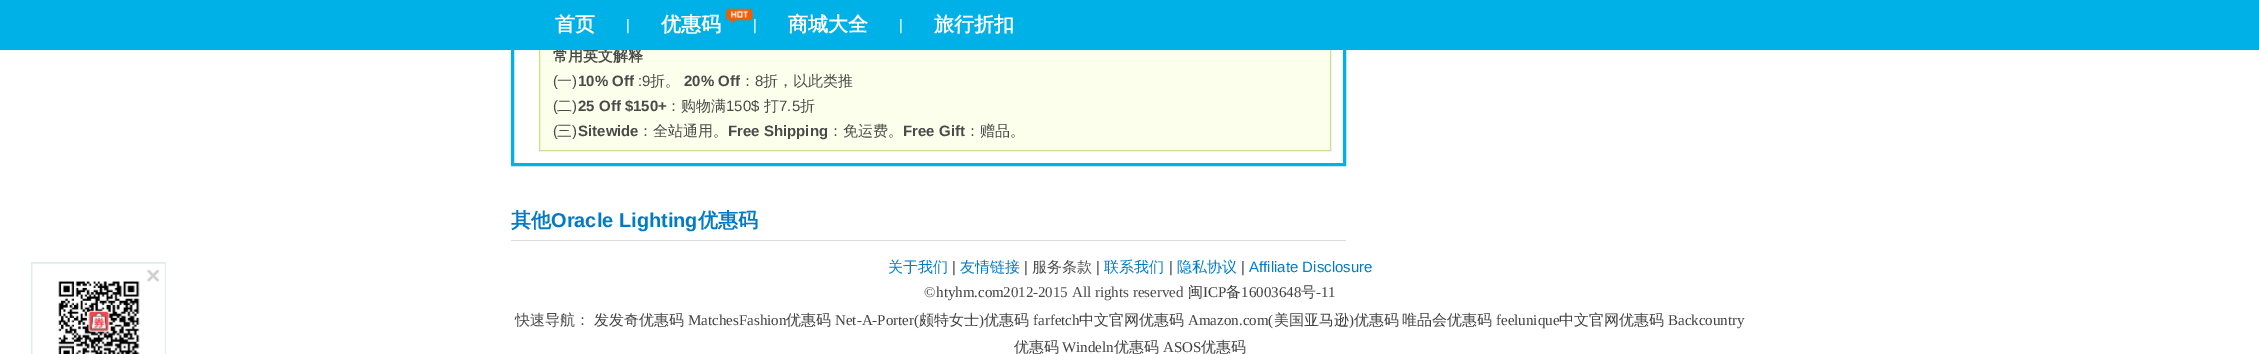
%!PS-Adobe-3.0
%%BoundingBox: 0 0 2259 354
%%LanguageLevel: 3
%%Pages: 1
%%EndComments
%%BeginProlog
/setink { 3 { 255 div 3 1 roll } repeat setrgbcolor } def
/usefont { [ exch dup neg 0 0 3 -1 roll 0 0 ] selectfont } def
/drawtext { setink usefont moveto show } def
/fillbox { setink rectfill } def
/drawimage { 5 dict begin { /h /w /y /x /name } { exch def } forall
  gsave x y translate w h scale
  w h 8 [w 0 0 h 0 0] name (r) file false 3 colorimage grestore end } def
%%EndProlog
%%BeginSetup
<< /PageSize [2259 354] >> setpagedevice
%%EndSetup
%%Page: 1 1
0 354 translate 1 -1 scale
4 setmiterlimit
0 0 2259 354 255 255 255 fillbox
0 177 232 setink
3 setlinewidth
512.5 -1.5 832 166 rectstroke
540 50 790 100 251 255 235 fillbox
206 224 134 setink
1 setlinewidth
539.5 -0.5 791 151 rectstroke
(常用英文解释) 553 61 /WenQuanYiZenHei-Bold 15 74 74 74 drawtext
0 0 2259 50 0 177 232 fillbox
(首页) 555 31 /WenQuanYiZenHei-Bold 20 255 255 255 drawtext
(|) 626 30 /LiberationSans-Regular 15 255 255 255 drawtext
(优惠码) 661 31 /WenQuanYiZenHei-Bold 20 255 255 255 drawtext
(assets/img1.rgb) 726 8 28 15 drawimage
(|) 753 30 /LiberationSans-Regular 15 255 255 255 drawtext
(商城大全) 788 31 /WenQuanYiZenHei-Bold 20 255 255 255 drawtext
(|) 899 30 /LiberationSans-Regular 15 255 255 255 drawtext
(旅行折扣) 934 31 /WenQuanYiZenHei-Bold 20 255 255 255 drawtext
(assets/img2.rgb) 31 262 135 92 drawimage
(assets/img3.rgb) 58 281 82 73 drawimage
(\() 553 86 /LiberationSans-Regular 15 74 74 74 drawtext
(一) 557 86 /WenQuanYiZenHei-Medium 15 74 74 74 drawtext
(\)) 572 86 /LiberationSans-Regular 15 74 74 74 drawtext
(10% Off) 578 86 /LiberationSans-Bold 15 74 74 74 drawtext
(:9) 638 86 /LiberationSans-Regular 15 74 74 74 drawtext
(折。) 650 86 /WenQuanYiZenHei-Medium 15 74 74 74 drawtext
(20% Off) 684 86 /LiberationSans-Bold 15 74 74 74 drawtext
(：) 740 86 /WenQuanYiZenHei-Medium 15 74 74 74 drawtext
(8) 755 86 /LiberationSans-Regular 15 74 74 74 drawtext
(折，以此类推) 763 86 /WenQuanYiZenHei-Medium 15 74 74 74 drawtext
(\() 553 111 /LiberationSans-Regular 15 74 74 74 drawtext
(二) 557 111 /WenQuanYiZenHei-Medium 15 74 74 74 drawtext
(\)) 572 111 /LiberationSans-Regular 15 74 74 74 drawtext
(25 Off $150+) 578 111 /LiberationSans-Bold 15 74 74 74 drawtext
(：购物满) 666 111 /WenQuanYiZenHei-Medium 15 74 74 74 drawtext
(150$) 726 111 /LiberationSans-Regular 15 74 74 74 drawtext
(打) 764 111 /WenQuanYiZenHei-Medium 15 74 74 74 drawtext
(7.5) 779 111 /LiberationSans-Regular 15 74 74 74 drawtext
(折) 800 111 /WenQuanYiZenHei-Medium 15 74 74 74 drawtext
(\() 553 136 /LiberationSans-Regular 15 74 74 74 drawtext
(三) 557 136 /WenQuanYiZenHei-Medium 15 74 74 74 drawtext
(\)) 572 136 /LiberationSans-Regular 15 74 74 74 drawtext
(Sitewide) 578 136 /LiberationSans-Bold 15 74 74 74 drawtext
(：全站通用。) 638 136 /WenQuanYiZenHei-Medium 15 74 74 74 drawtext
(Free Shipping) 728 136 /LiberationSans-Bold 15 74 74 74 drawtext
(：免运费。) 828 136 /WenQuanYiZenHei-Medium 15 74 74 74 drawtext
(Free Gift) 903 136 /LiberationSans-Bold 15 74 74 74 drawtext
(：赠品。) 965 136 /WenQuanYiZenHei-Medium 15 74 74 74 drawtext
511 240 835 1 221 221 221 fillbox
(其他) 511 227 /WenQuanYiZenHei-Bold 20 1 123 198 drawtext
(Oracle Lighting) 551 227 /LiberationSans-Bold 20 1 123 198 drawtext
(优惠码) 698 227 /WenQuanYiZenHei-Bold 20 1 123 198 drawtext
(关于我们) 888 272 /WenQuanYiZenHei-Medium 15 1 123 198 drawtext
(|) 952 272 /LiberationSans-Regular 15 74 74 74 drawtext
(友情链接) 960 272 /WenQuanYiZenHei-Medium 15 1 123 198 drawtext
(|) 1024 272 /LiberationSans-Regular 15 74 74 74 drawtext
(服务条款) 1032 272 /WenQuanYiZenHei-Medium 15 74 74 74 drawtext
(|) 1096 272 /LiberationSans-Regular 15 74 74 74 drawtext
(联系我们) 1104 272 /WenQuanYiZenHei-Medium 15 1 123 198 drawtext
(|) 1169 272 /LiberationSans-Regular 15 74 74 74 drawtext
(隐私协议) 1177 272 /WenQuanYiZenHei-Medium 15 1 123 198 drawtext
(|) 1241 272 /LiberationSans-Regular 15 74 74 74 drawtext
(Affiliate Disclosure) 1249 272 /LiberationSans-Regular 15 1 123 198 drawtext
(©) 924 297 /LiberationSerif-Regular 15 74 74 74 drawtext
(htyhm.com) 936 297 /LiberationSerif-Regular 15 65 65 65 drawtext
(2012-2015 All rights reserved) 1003 297 /LiberationSerif-Regular 15 74 74 74 drawtext
(闽) 1188 297 /WenQuanYiZenHei-Medium 15 65 65 65 drawtext
(ICP) 1203 297 /LiberationSerif-Regular 15 65 65 65 drawtext
(备) 1226 297 /WenQuanYiZenHei-Medium 15 65 65 65 drawtext
(16003648) 1241 297 /LiberationSerif-Regular 15 65 65 65 drawtext
(号) 1301 297 /WenQuanYiZenHei-Medium 15 65 65 65 drawtext
(-11) 1316 297 /LiberationSerif-Regular 15 65 65 65 drawtext
(快速导航：) 515 325 /WenQuanYiZenHei-Medium 15 74 74 74 drawtext
(发发奇优惠码) 594 325 /WenQuanYiZenHei-Medium 15 65 65 65 drawtext
(MatchesFashion) 688 325 /LiberationSerif-Regular 15 65 65 65 drawtext
(优惠码) 786 325 /WenQuanYiZenHei-Medium 15 65 65 65 drawtext
(Net-A-Porter\() 835 325 /LiberationSerif-Regular 15 65 65 65 drawtext
(颇特女士) 919 325 /WenQuanYiZenHei-Medium 15 65 65 65 drawtext
(\)) 979 325 /LiberationSerif-Regular 15 65 65 65 drawtext
(优惠码) 984 325 /WenQuanYiZenHei-Medium 15 65 65 65 drawtext
(farfetch) 1033 325 /LiberationSerif-Regular 15 65 65 65 drawtext
(中文官网优惠码) 1079 325 /WenQuanYiZenHei-Medium 15 65 65 65 drawtext
(Amazon.com\() 1188 325 /LiberationSerif-Regular 15 65 65 65 drawtext
(美国亚马逊) 1274 325 /WenQuanYiZenHei-Medium 15 65 65 65 drawtext
(\)) 1349 325 /LiberationSerif-Regular 15 65 65 65 drawtext
(优惠码) 1354 325 /WenQuanYiZenHei-Medium 15 65 65 65 drawtext
(唯品会优惠码) 1402 325 /WenQuanYiZenHei-Medium 15 65 65 65 drawtext
(feelunique) 1496 325 /LiberationSerif-Regular 15 65 65 65 drawtext
(中文官网优惠码) 1559 325 /WenQuanYiZenHei-Medium 15 65 65 65 drawtext
(Backcountry) 1668 325 /LiberationSerif-Regular 15 65 65 65 drawtext
(优惠码) 1014 352 /WenQuanYiZenHei-Medium 15 65 65 65 drawtext
(Windeln) 1062 352 /LiberationSerif-Regular 15 65 65 65 drawtext
(优惠码) 1114 352 /WenQuanYiZenHei-Medium 15 65 65 65 drawtext
(ASOS) 1163 352 /LiberationSerif-Regular 15 65 65 65 drawtext
(优惠码) 1201 352 /WenQuanYiZenHei-Medium 15 65 65 65 drawtext
showpage
%%EOF
